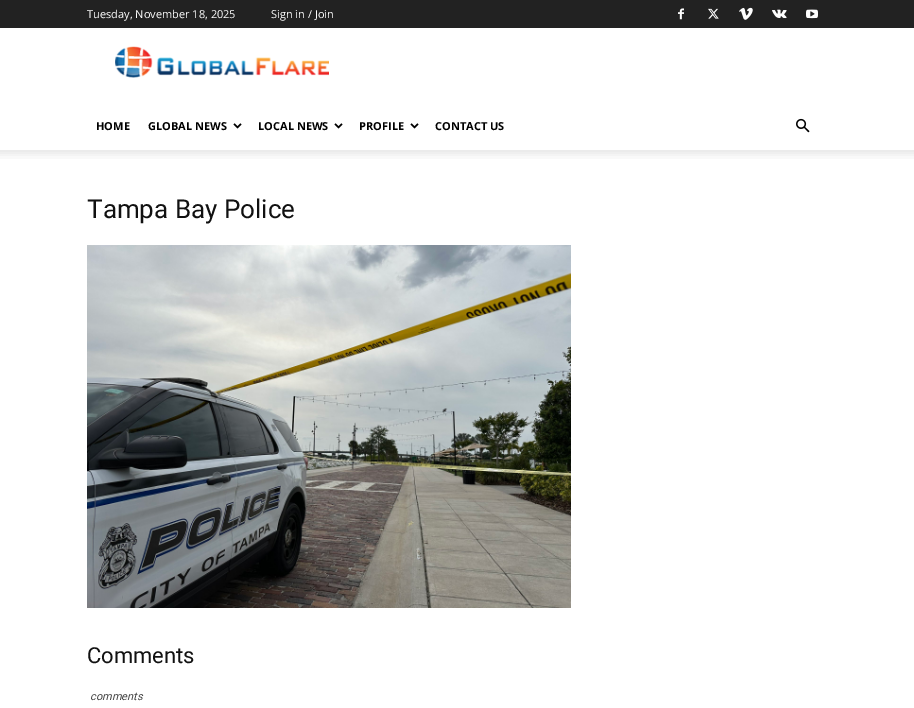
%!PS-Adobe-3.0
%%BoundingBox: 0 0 914 708
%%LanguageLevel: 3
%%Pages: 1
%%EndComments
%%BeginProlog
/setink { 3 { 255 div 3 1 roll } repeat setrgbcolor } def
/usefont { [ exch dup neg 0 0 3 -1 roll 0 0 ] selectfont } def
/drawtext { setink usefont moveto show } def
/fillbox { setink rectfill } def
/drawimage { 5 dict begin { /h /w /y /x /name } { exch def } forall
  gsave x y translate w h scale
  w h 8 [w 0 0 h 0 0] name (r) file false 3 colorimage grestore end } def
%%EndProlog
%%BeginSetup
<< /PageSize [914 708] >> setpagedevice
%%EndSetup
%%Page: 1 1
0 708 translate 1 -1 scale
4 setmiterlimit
0 0 914 708 255 255 255 fillbox
0 0 914 28 34 34 34 fillbox
(Tuesday, November 18, 2025) 87 18 /OpenSans-Regular 11 255 255 255 drawtext
(Sign in / Join) 271 18 /OpenSans-Regular 11 255 255 255 drawtext
(assets/img1.rgb) 678 8 6 12 drawimage
(assets/img2.rgb) 708 8 11 11 drawimage
(assets/img3.rgb) 739 7 14 13 drawimage
(assets/img4.rgb) 772 9 15 10 drawimage
(assets/img5.rgb) 806 9 12 10 drawimage
(assets/img6.rgb) 115 46 214 32 drawimage
(HOME) 96 130 /OpenSans-Bold 11 0 0 0 drawtext
(GLOBAL NEWS) 148 130 /OpenSans-Bold 11 0 0 0 drawtext
(assets/img7.rgb) 233 123 9 6 drawimage
(LOCAL NEWS) 258 130 /OpenSans-Bold 11 0 0 0 drawtext
(assets/img7.rgb) 334 123 9 6 drawimage
(PROFILE) 359 130 /OpenSans-Bold 11 0 0 0 drawtext
(assets/img7.rgb) 410 123 9 6 drawimage
(CONTACT US) 435 130 /OpenSans-Bold 11 0 0 0 drawtext
(assets/img8.rgb) 796 118 14 15 drawimage
(assets/img9.rgb) 0 150 914 9 drawimage
(Tampa Bay Police) 87 218 /Roboto-Regular 26 17 17 17 drawtext
(assets/img10.rgb) 87 245 484 363 drawimage
(Comments) 87 663 /Roboto-Regular 22 17 17 17 drawtext
(comments) 90 700 /Roboto-Italic 11 68 68 68 drawtext
showpage
%%EOF
